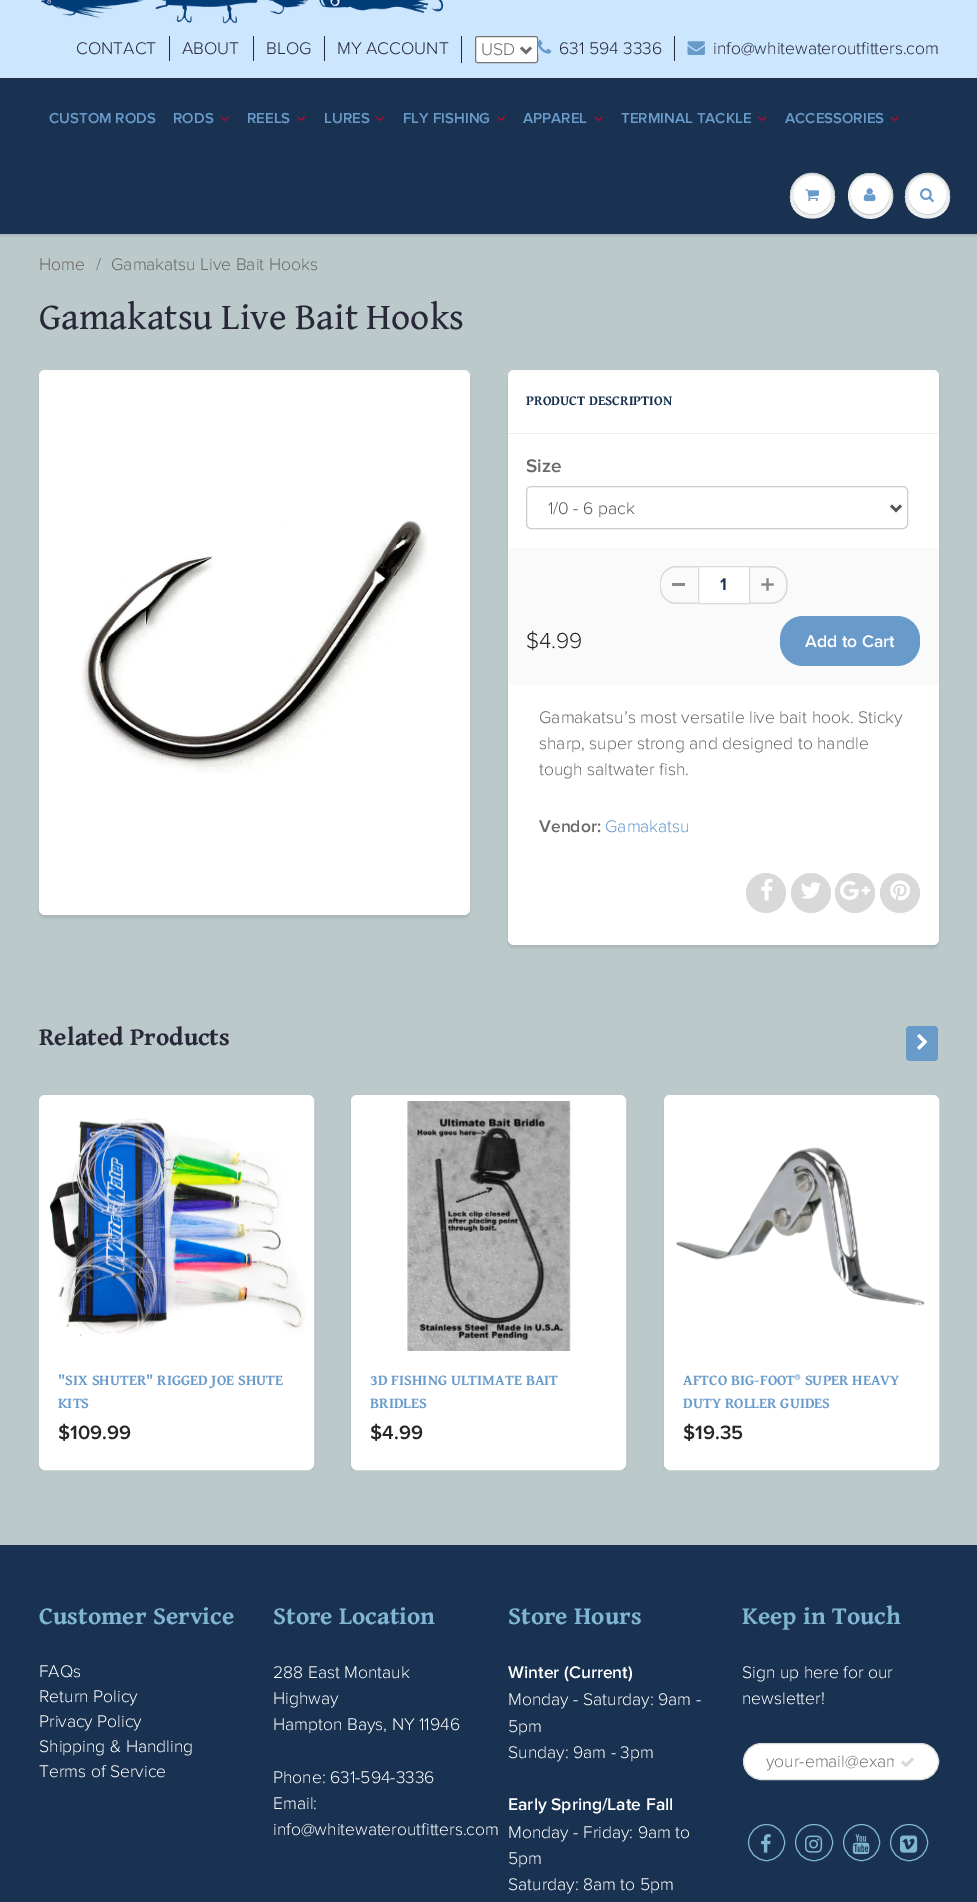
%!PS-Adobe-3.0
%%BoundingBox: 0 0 977 1902
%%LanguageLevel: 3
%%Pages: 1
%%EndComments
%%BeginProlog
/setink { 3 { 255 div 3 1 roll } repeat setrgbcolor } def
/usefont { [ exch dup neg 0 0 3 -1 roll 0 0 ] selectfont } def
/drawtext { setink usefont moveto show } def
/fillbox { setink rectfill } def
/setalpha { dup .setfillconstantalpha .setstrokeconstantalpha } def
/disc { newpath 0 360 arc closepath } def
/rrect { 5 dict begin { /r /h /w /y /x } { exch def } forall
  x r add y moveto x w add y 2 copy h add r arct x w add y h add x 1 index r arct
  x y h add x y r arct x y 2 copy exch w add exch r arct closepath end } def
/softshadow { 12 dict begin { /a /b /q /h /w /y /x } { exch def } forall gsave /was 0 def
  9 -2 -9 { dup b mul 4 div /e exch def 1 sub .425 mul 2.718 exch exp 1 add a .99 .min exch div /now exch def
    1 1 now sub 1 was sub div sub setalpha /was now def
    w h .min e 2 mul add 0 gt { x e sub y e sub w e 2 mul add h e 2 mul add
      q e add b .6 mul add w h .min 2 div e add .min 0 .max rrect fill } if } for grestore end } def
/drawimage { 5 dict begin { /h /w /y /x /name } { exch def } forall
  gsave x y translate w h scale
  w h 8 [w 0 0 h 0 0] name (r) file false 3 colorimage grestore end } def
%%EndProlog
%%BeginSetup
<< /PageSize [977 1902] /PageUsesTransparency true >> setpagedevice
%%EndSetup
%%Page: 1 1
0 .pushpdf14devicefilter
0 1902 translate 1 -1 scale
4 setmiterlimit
0 0 977 1902 204 230 254 fillbox
(assets/img1.rgb) 41 0 403 24 drawimage
(CONTACT) 76 54 /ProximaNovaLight-Light 17.5 41 40 56 drawtext
169 36 1 25 41 40 56 fillbox
(ABOUT) 182 54 /ProximaNovaLight-Light 17.5 41 40 56 drawtext
253 36 1 25 41 40 56 fillbox
(BLOG) 266 54 /ProximaNovaLight-Light 17.5 41 40 56 drawtext
324 36 1 25 41 40 56 fillbox
(MY ACCOUNT) 337 54 /ProximaNovaLight-Light 17.5 41 40 56 drawtext
461 36 1 27 41 40 56 fillbox
255 255 255 setink
475.5 36.5 62 26 2 rrect gsave fill grestore
118 118 118 setink
stroke
105 105 105 setink
2.5 setlinewidth
521 47.5 moveto 526 52.5 lineto 531 47.5 lineto stroke
(USD) 481 55 /ProximaNovaLight-Light 17.5 105 105 105 drawtext
(assets/img2.rgb) 537 40 15 14 drawimage
(631 594 3336) 559 54 /ProximaNovaLight-Light 17.5 41 40 56 drawtext
674 36 1 25 41 40 56 fillbox
(assets/img3.rgb) 687 41 18 14 drawimage
(info@whitewateroutfitters.com) 713 54 /ProximaNovaLight-Light 17.5 41 40 56 drawtext
0 234 977 1311 187 201 202 fillbox
11 25 28 setink
0 80 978 156 0 1 0.12 softshadow
0 79 977 155 25 50 81 fillbox
0 78 977 1 41 40 56 fillbox
(CUSTOM RODS) 49 123 /ProximaNovaLight-SemiBold 15 104 154 202 drawtext
(RODS) 173 123 /ProximaNovaLight-SemiBold 15 104 154 202 drawtext
(assets/img4.rgb) 220 116 9 6 drawimage
(REELS) 247 123 /ProximaNovaLight-SemiBold 15 104 154 202 drawtext
(assets/img5.rgb) 297 116 9 6 drawimage
(LURES) 324 123 /ProximaNovaLight-SemiBold 15 104 154 202 drawtext
(assets/img4.rgb) 375 116 9 6 drawimage
(FLY FISHING) 403 123 /ProximaNovaLight-SemiBold 15 104 154 202 drawtext
(assets/img5.rgb) 497 116 9 6 drawimage
(APPAREL) 523 123 /ProximaNovaLight-SemiBold 15 104 154 202 drawtext
(assets/img6.rgb) 594 116 9 6 drawimage
(TERMINAL TACKLE) 621 123 /ProximaNovaLight-SemiBold 15 104 154 202 drawtext
(assets/img7.rgb) 758 116 9 6 drawimage
(ACCESSORIES) 785 123 /ProximaNovaLight-SemiBold 15 104 154 202 drawtext
(assets/img4.rgb) 890 116 9 6 drawimage
255 255 255 setink
790 196 moveto 789 226 836 226 835 196 curveto 834 224 791 224 790 196 curveto closepath fill
237 239 239 setink
812.5 195.5 22.5 disc fill
201 203 203 setink
812 174 moveto 830 174 837 191 833 204 curveto 843 180 809 160 794 183 curveto 790 188 789 195 791 201 curveto 789 188 796 174 812 174 curveto closepath fill
794 199 moveto 797 220 828 220 831 199 curveto 826.5 218.5 798.5 218.5 794 199 curveto closepath fill
255 255 255 setink
794 176 37 38 18.5 rrect fill
812 178 moveto 826 178 832 189.5 830.5 200 curveto 831.5 196 831 191 829.5 187.5 curveto 821.5 168.5 793.5 174.5 794 196 curveto 794 187 800 178 812 178 curveto closepath fill
(assets/img8.rgb) 805 189 14 12 drawimage
849 203 moveto 850 207 853 212 857 214 curveto 875 228 899 209 892 189 curveto 900 216 859 230 849 203 curveto closepath fill
237 239 239 setink
870.5 195.5 22.5 disc fill
201 203 203 setink
870 174 moveto 888 174 895 191 891 204 curveto 900 182 872 163 855 179 curveto 859 176 864 174 870 174 curveto closepath fill
851.5 192.5 moveto 850.5 197.5 851.5 202.5 854 207 curveto 865.5 223.5 893 213 888.5 192.5 curveto 891 212 865.5 221.5 854.5 205.5 curveto 852 202 851 197 851.5 192.5 curveto closepath fill
255 255 255 setink
870 195 19 disc fill
870 178 moveto 883.5 178 889.5 189 888.5 199 curveto 889.5 194 888.5 188.5 886 184.5 curveto 874 167 847.5 179 851.5 199 curveto 850.5 189 856.5 178 870 178 curveto closepath fill
(assets/img9.rgb) 863 188 13 14 drawimage
905 196 moveto 904 226 951 226 950 196 curveto 949 224 906 224 905 196 curveto closepath fill
237 239 239 setink
927.5 195.5 22.5 disc fill
201 203 203 setink
928 174 moveto 944 174 951 188 949 201 curveto 951 195 950 188 946 183 curveto 931 160 897 180 907 204 curveto 903 191 910 174 928 174 curveto closepath fill
909 199 moveto 912 220 943 220 946 199 curveto 941.5 218.5 913.5 218.5 909 199 curveto closepath fill
255 255 255 setink
909 176 37 38 18.5 rrect fill
928 178 moveto 940 178 946 187 946 196 curveto 946.5 174.5 918.5 168.5 910.5 187.5 curveto 909 191 908.5 196 909.5 200 curveto 908 189.5 914 178 928 178 curveto closepath fill
(assets/img10.rgb) 920 188 14 15 drawimage
(Home) 39 270 /ProximaNovaLight-Light 17.5 112 99 93 drawtext
(/) 96 270 /ProximaNovaLight-Light 17.5 105 105 105 drawtext
(Gamakatsu Live Bait Hooks) 111 270 /ProximaNovaLight-Light 17.5 105 105 105 drawtext
(Gamakatsu Live Bait Hooks) 39 329 /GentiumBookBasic-Regular 37.5 41 40 56 drawtext
11 25 28 setink
39 373 431 545 6 1 0.1 softshadow
255 255 255 setink
39 370 431 545 6 rrect fill
(assets/img11.rgb) 81 520 346 253 drawimage
11 25 28 setink
508 373 431 575 6 1 0.1 softshadow
255 255 255 setink
508 370 431 575 6 rrect fill
508 433 431 1 239 239 239 fillbox
(PRODUCT DESCRIPTION) 526 405 /GentiumBookBasic-Bold 13.75 25 50 81 drawtext
(Size) 526 472 /ProximaNovaLight-SemiBold 19 105 105 105 drawtext
204 204 204 setink
1 setlinewidth
526.5 486.5 381 42 4.5 rrect stroke
85 85 85 setink
2.5 setlinewidth
891 505.5 moveto 896 510.5 lineto 901 505.5 lineto stroke
(1/0 - 6 pack) 548 514 /ProximaNovaLight-Light 17.5 85 85 85 drawtext
508 548 431 137 250 250 250 fillbox
672 583 13 3 137 137 137 fillbox
215 219 219 setink
676 566 moveto 697.5 566 lineto 697.5 604 lineto 676 604 lineto 667.5 604 660 596.5 660 587.5 curveto 660 582.5 lineto 660 573.5 667.5 566 676 566 curveto closepath 676 567.5 moveto 697.5 567.5 lineto 697.5 602.5 lineto 676 602.5 lineto 668 602.5 661 596 661 587.5 curveto 661 582.5 lineto 661 574 668 567.5 676 567.5 curveto closepath eofill
255 255 255 setink
698.5 566.5 moveto 749.5 566.5 lineto 749.5 603.5 lineto 698.5 603.5 lineto closepath gsave fill grestore
215 219 219 setink
1 setlinewidth
stroke
(1) 720 590 /ProximaNovaLight-SemiBold 17.5 25 50 81 drawtext
(assets/img12.rgb) 761 578 13 13 drawimage
215 219 219 setink
750 566 moveto 771 566 lineto 780 566 787.5 573.5 787.5 582.5 curveto 787.5 587.5 lineto 787.5 596.5 780 604 771 604 curveto 750 604 lineto closepath 750 567.5 moveto 771 567.5 lineto 779.5 567.5 786 574 786 582.5 curveto 786 587.5 lineto 786 596 779.5 602.5 771 602.5 curveto 750 602.5 lineto closepath eofill
($4.99) 526 648 /ProximaNovaLight-Light 22.5 40 40 39 drawtext
104 154 202 setink
780 616 140 50 23 rrect fill
(Add to Cart) 805 647 /ProximaNovaLight-SemiBold 17.5 255 255 255 drawtext
(Gamakatsu’s most versatile live bait hook. Sticky) 539 723 /ProximaNovaLight-Light 17.5 105 105 105 drawtext
(sharp, super strong and designed to handle) 539 749 /ProximaNovaLight-Light 17.5 105 105 105 drawtext
(tough saltwater fish.) 539 775 /ProximaNovaLight-Light 17.5 105 105 105 drawtext
(Vendor:) 539 832 /ProximaNovaLight-SemiBold 17.5 105 105 105 drawtext
(Gamakatsu) 605 832 /ProximaNovaLight-Light 17.5 104 154 202 drawtext
217 217 217 setink
766 893 20 disc fill
(assets/img13.rgb) 761 878 12 23 drawimage
811 893 20 disc fill
(assets/img14.rgb) 801 882 20 17 drawimage
855 893 20 disc fill
(assets/img15.rgb) 840 880 30 20 drawimage
900 893 20 disc fill
(assets/img16.rgb) 890 880 20 21 drawimage
(Related Products) 39 1045 /GentiumBookBasic-Bold 25 41 40 56 drawtext
104 154 202 setink
906 1026 32 35 4 rrect fill
(assets/img17.rgb) 917 1034 11 16 drawimage
gsave
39 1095 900 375 rectclip
11 25 28 setink
39 1098 275 375 6 1 0.1 softshadow
grestore
255 255 255 setink
42 1098 269 369 3 rrect gsave fill grestore
6 setlinewidth
stroke
(assets/img18.rgb) 49 1118 256 218 drawimage
("SIX SHUTER" RIGGED JOE SHUTE) 58 1385 /GentiumBookBasic-Bold 15 104 154 202 drawtext
(KITS) 58 1408 /GentiumBookBasic-Bold 15 104 154 202 drawtext
($109.99) 58 1439 /ProximaNovaLight-SemiBold 20 40 40 39 drawtext
gsave
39 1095 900 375 rectclip
11 25 28 setink
351 1098 275 375 6 1 0.1 softshadow
grestore
255 255 255 setink
354 1098 269 369 3 rrect gsave fill grestore
stroke
(assets/img19.rgb) 407 1101 164 250 drawimage
(3D FISHING ULTIMATE BAIT) 370 1385 /GentiumBookBasic-Bold 15 104 154 202 drawtext
(BRIDLES) 370 1408 /GentiumBookBasic-Bold 15 104 154 202 drawtext
($4.99) 370 1439 /ProximaNovaLight-SemiBold 20 40 40 39 drawtext
gsave
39 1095 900 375 rectclip
11 25 28 setink
664 1098 275 375 6 1 0.1 softshadow
grestore
255 255 255 setink
667 1098 269 369 3 rrect gsave fill grestore
stroke
(assets/img20.rgb) 676 1147 249 159 drawimage
(AFTCO BIG-FOOT® SUPER HEAVY) 683 1385 /GentiumBookBasic-Bold 15 104 154 202 drawtext
(DUTY ROLLER GUIDES) 683 1408 /GentiumBookBasic-Bold 15 104 154 202 drawtext
($19.35) 683 1439 /ProximaNovaLight-SemiBold 20 40 40 39 drawtext
0 1545 977 357 25 50 81 fillbox
(Customer Service) 39 1624 /GentiumBookBasic-Bold 25 128 182 210 drawtext
(FAQs) 39 1677 /ProximaNovaLight-Light 17.5 255 255 255 drawtext
(Return Policy) 39 1702 /ProximaNovaLight-Light 17.5 255 255 255 drawtext
(Privacy Policy) 39 1727 /ProximaNovaLight-Light 17.5 255 255 255 drawtext
(Shipping & Handling) 39 1752 /ProximaNovaLight-Light 17.5 255 255 255 drawtext
(Terms of Service) 39 1777 /ProximaNovaLight-Light 17.5 255 255 255 drawtext
(Store Location) 273 1624 /GentiumBookBasic-Bold 25 128 182 210 drawtext
(288 East Montauk) 273 1678 /ProximaNovaLight-Light 17.5 255 255 255 drawtext
(Highway) 273 1704 /ProximaNovaLight-Light 17.5 255 255 255 drawtext
(Hampton Bays, NY 11946) 273 1730 /ProximaNovaLight-Light 17.5 255 255 255 drawtext
(Phone: 631-594-3336) 273 1783 /ProximaNovaLight-Light 17.5 255 255 255 drawtext
(Email:) 273 1809 /ProximaNovaLight-Light 17.5 255 255 255 drawtext
(info@whitewateroutfitters.com) 273 1835 /ProximaNovaLight-Light 17.5 255 255 255 drawtext
(Store Hours) 508 1624 /GentiumBookBasic-Bold 25 128 182 210 drawtext
(Winter \(Current\)) 508 1678 /ProximaNovaLight-SemiBold 17.5 255 255 255 drawtext
(Monday - Saturday: 9am -) 508 1705 /ProximaNovaLight-Light 17.5 255 255 255 drawtext
(5pm) 508 1732 /ProximaNovaLight-Light 17.5 255 255 255 drawtext
(Sunday: 9am - 3pm) 508 1758 /ProximaNovaLight-Light 17.5 255 255 255 drawtext
(Early Spring/Late Fall) 508 1810 /ProximaNovaLight-SemiBold 17.5 255 255 255 drawtext
(Monday - Friday: 9am to) 508 1838 /ProximaNovaLight-Light 17.5 255 255 255 drawtext
(5pm) 508 1864 /ProximaNovaLight-Light 17.5 255 255 255 drawtext
(Saturday: 8am to 5pm) 508 1890 /ProximaNovaLight-Light 17.5 255 255 255 drawtext
(Keep in Touch) 742 1624 /GentiumBookBasic-Bold 25 128 182 210 drawtext
(Sign up here for our) 742 1678 /ProximaNovaLight-Light 17.5 255 255 255 drawtext
(newsletter!) 742 1704 /ProximaNovaLight-Light 17.5 255 255 255 drawtext
743.5 1743.5 195 36 18 rrect gsave fill grestore
215 219 219 setink
1 setlinewidth
stroke
gsave
766 1751 128 22 rectclip
(your-email@exam) 766 1767 /ProximaNovaLight-Light 17.5 117 117 117 drawtext
grestore
(assets/img21.rgb) 901 1757 13 11 drawimage
128 182 210 setink
766.5 1842.5 18 disc stroke
(assets/img22.rgb) 761 1834 10 19 drawimage
795.5 1824.5 37 36 18 rrect stroke
(assets/img23.rgb) 805 1835 18 18 drawimage
861.5 1842.5 18 disc stroke
(assets/img24.rgb) 852 1834 18 21 drawimage
890.5 1824.5 37 36 18 rrect stroke
(assets/img25.rgb) 900 1835 18 18 drawimage
.poppdf14devicefilter showpage
%%EOF
